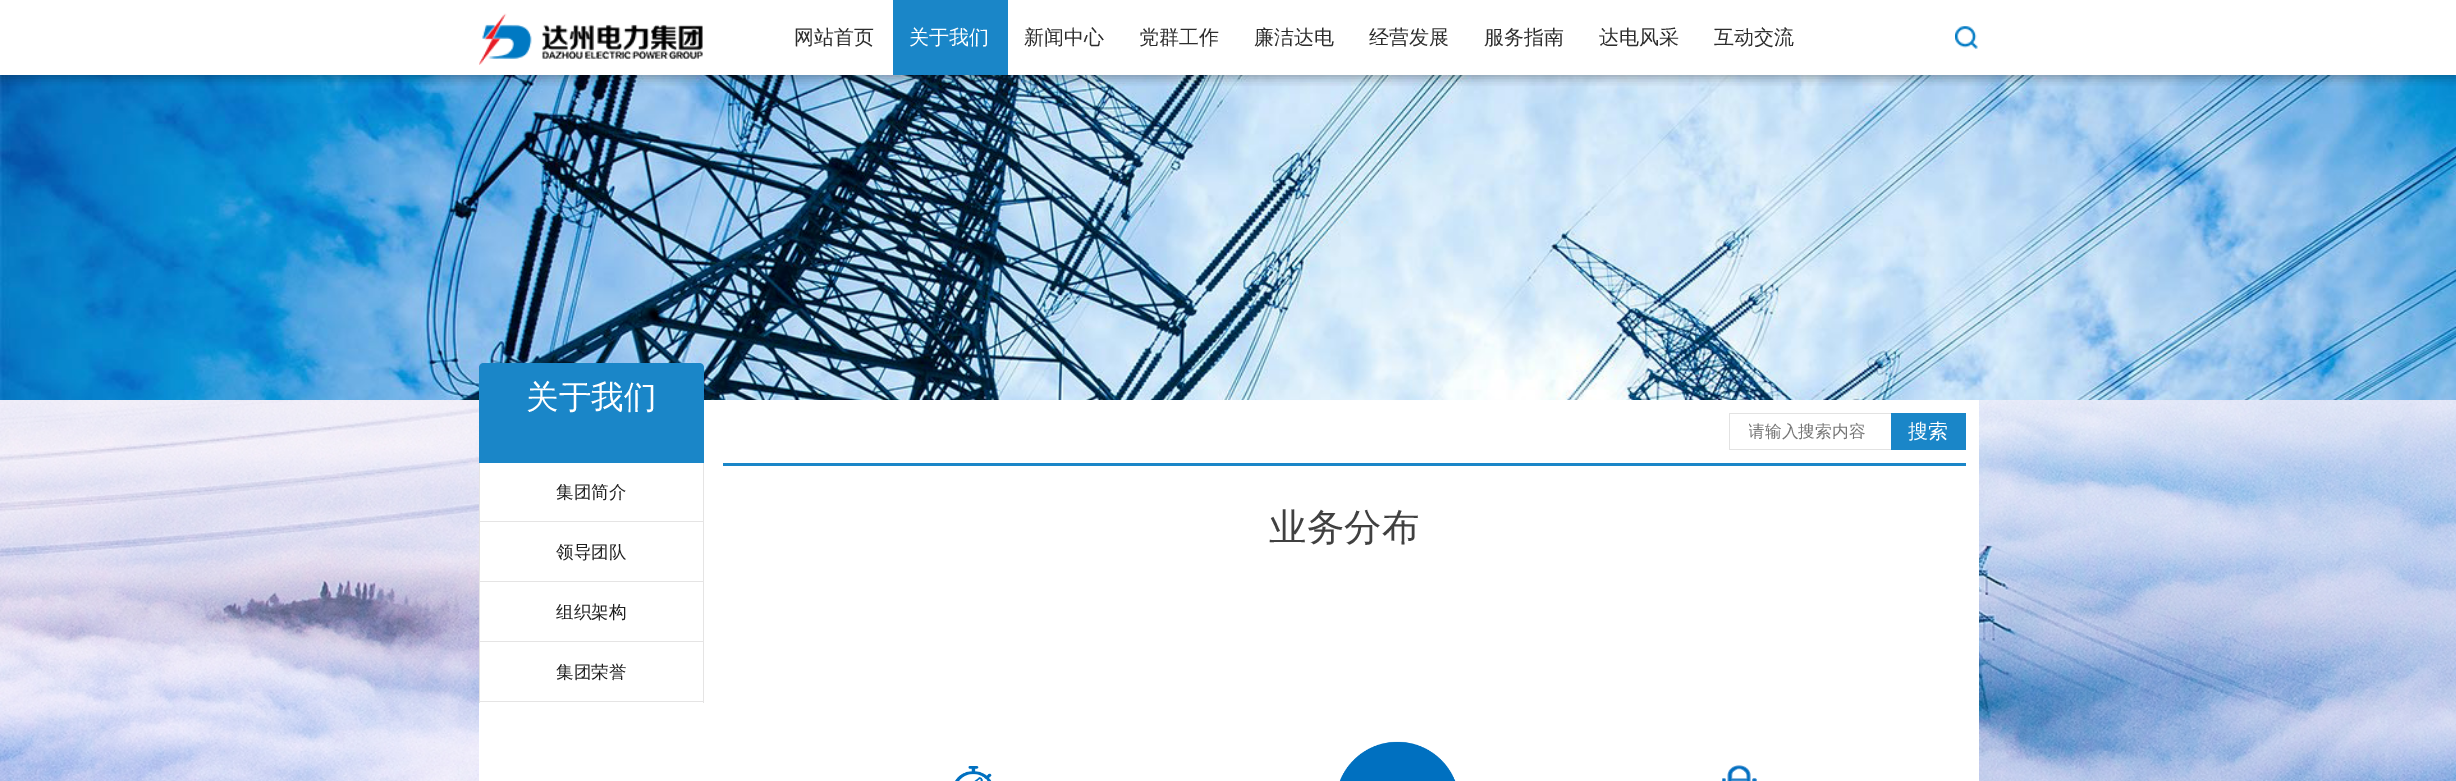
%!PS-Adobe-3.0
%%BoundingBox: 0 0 2456 781
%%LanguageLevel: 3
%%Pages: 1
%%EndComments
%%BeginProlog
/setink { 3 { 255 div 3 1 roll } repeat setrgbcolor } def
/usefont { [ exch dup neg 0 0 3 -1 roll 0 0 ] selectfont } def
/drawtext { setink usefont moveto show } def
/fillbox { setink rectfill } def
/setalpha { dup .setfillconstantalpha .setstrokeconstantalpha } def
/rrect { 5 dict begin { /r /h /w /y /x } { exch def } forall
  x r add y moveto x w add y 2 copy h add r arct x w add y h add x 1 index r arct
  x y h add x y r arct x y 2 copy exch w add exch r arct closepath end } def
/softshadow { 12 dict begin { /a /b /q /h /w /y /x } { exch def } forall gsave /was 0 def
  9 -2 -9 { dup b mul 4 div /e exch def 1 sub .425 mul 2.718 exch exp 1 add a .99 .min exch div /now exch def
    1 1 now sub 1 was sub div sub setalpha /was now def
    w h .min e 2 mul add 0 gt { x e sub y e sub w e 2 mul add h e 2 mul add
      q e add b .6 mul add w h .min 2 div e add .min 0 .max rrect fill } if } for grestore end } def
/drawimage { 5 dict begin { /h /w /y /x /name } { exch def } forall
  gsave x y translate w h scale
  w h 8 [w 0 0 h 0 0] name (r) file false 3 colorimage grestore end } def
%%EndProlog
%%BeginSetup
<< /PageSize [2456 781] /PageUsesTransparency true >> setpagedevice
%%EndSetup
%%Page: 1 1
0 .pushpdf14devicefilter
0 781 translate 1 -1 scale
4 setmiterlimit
0 0 2456 781 255 255 255 fillbox
(assets/img3.rgb) 0 75 2456 325 drawimage
gsave
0 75 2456 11 rectclip
0 0 0 setink
0 3 2456 75 0 5 0.32 softshadow
grestore
(assets/img1.rgb) 479 13 224 52 drawimage
(网站首页) 794 44 /WenQuanYiZenHei-Medium 20 45 45 45 drawtext
893 0 115 75 26 134 200 fillbox
(关于我们) 909 44 /WenQuanYiZenHei-Medium 20 255 255 255 drawtext
(新闻中心) 1024 44 /WenQuanYiZenHei-Medium 20 45 45 45 drawtext
(党群工作) 1139 44 /WenQuanYiZenHei-Medium 20 45 45 45 drawtext
(廉洁达电) 1254 44 /WenQuanYiZenHei-Medium 20 45 45 45 drawtext
(经营发展) 1369 44 /WenQuanYiZenHei-Medium 20 45 45 45 drawtext
(服务指南) 1484 44 /WenQuanYiZenHei-Medium 20 45 45 45 drawtext
(达电风采) 1599 44 /WenQuanYiZenHei-Medium 20 45 45 45 drawtext
(互动交流) 1714 44 /WenQuanYiZenHei-Medium 20 45 45 45 drawtext
(assets/img2.rgb) 1955 26 23 23 drawimage
(assets/img4.rgb) 0 400 2456 381 drawimage
479 400 1500 381 255 255 255 fillbox
26 134 200 setink
484 363 moveto 699 363 lineto 702 363 704 365 704 368 curveto 704 463 lineto 479 463 lineto 479 368 lineto 479 365 481 363 484 363 curveto closepath fill
(关于我们) 526 408 /WenQuanYiZenHei-Medium 32.5 255 255 255 drawtext
703 463 1 240 229 228 228 fillbox
479 521 225 1 229 228 228 fillbox
479 463 1 60 229 228 228 fillbox
(集团简介) 556 498 /WenQuanYiZenHei-Medium 17.5 31 31 31 drawtext
479 581 225 1 229 228 228 fillbox
479 523 1 60 229 228 228 fillbox
(领导团队) 556 558 /WenQuanYiZenHei-Medium 17.5 31 31 31 drawtext
479 641 225 1 229 228 228 fillbox
479 583 1 60 229 228 228 fillbox
(组织架构) 556 618 /WenQuanYiZenHei-Medium 17.5 31 31 31 drawtext
479 701 225 1 229 228 228 fillbox
479 643 1 60 229 228 228 fillbox
(集团荣誉) 556 678 /WenQuanYiZenHei-Medium 17.5 31 31 31 drawtext
723 463 1243 3 26 134 200 fillbox
1729 413 162 1 226 226 226 fillbox
1729 449 162 1 226 226 226 fillbox
1729 413 1 37 226 226 226 fillbox
gsave
1749 421 124 23 rectclip
(请输入搜索内容) 1748 437 /WenQuanYiZenHei-Medium 16.75 117 117 117 drawtext
grestore
1891 413 75 37 26 134 200 fillbox
(搜索) 1908 438 /WenQuanYiZenHei-Medium 20 255 255 255 drawtext
(业务分布) 1269 540 /WenQuanYiZenHei-Medium 37.5 64 64 64 drawtext
(assets/img5.rgb) 955 741 803 40 drawimage
.poppdf14devicefilter showpage
%%EOF
